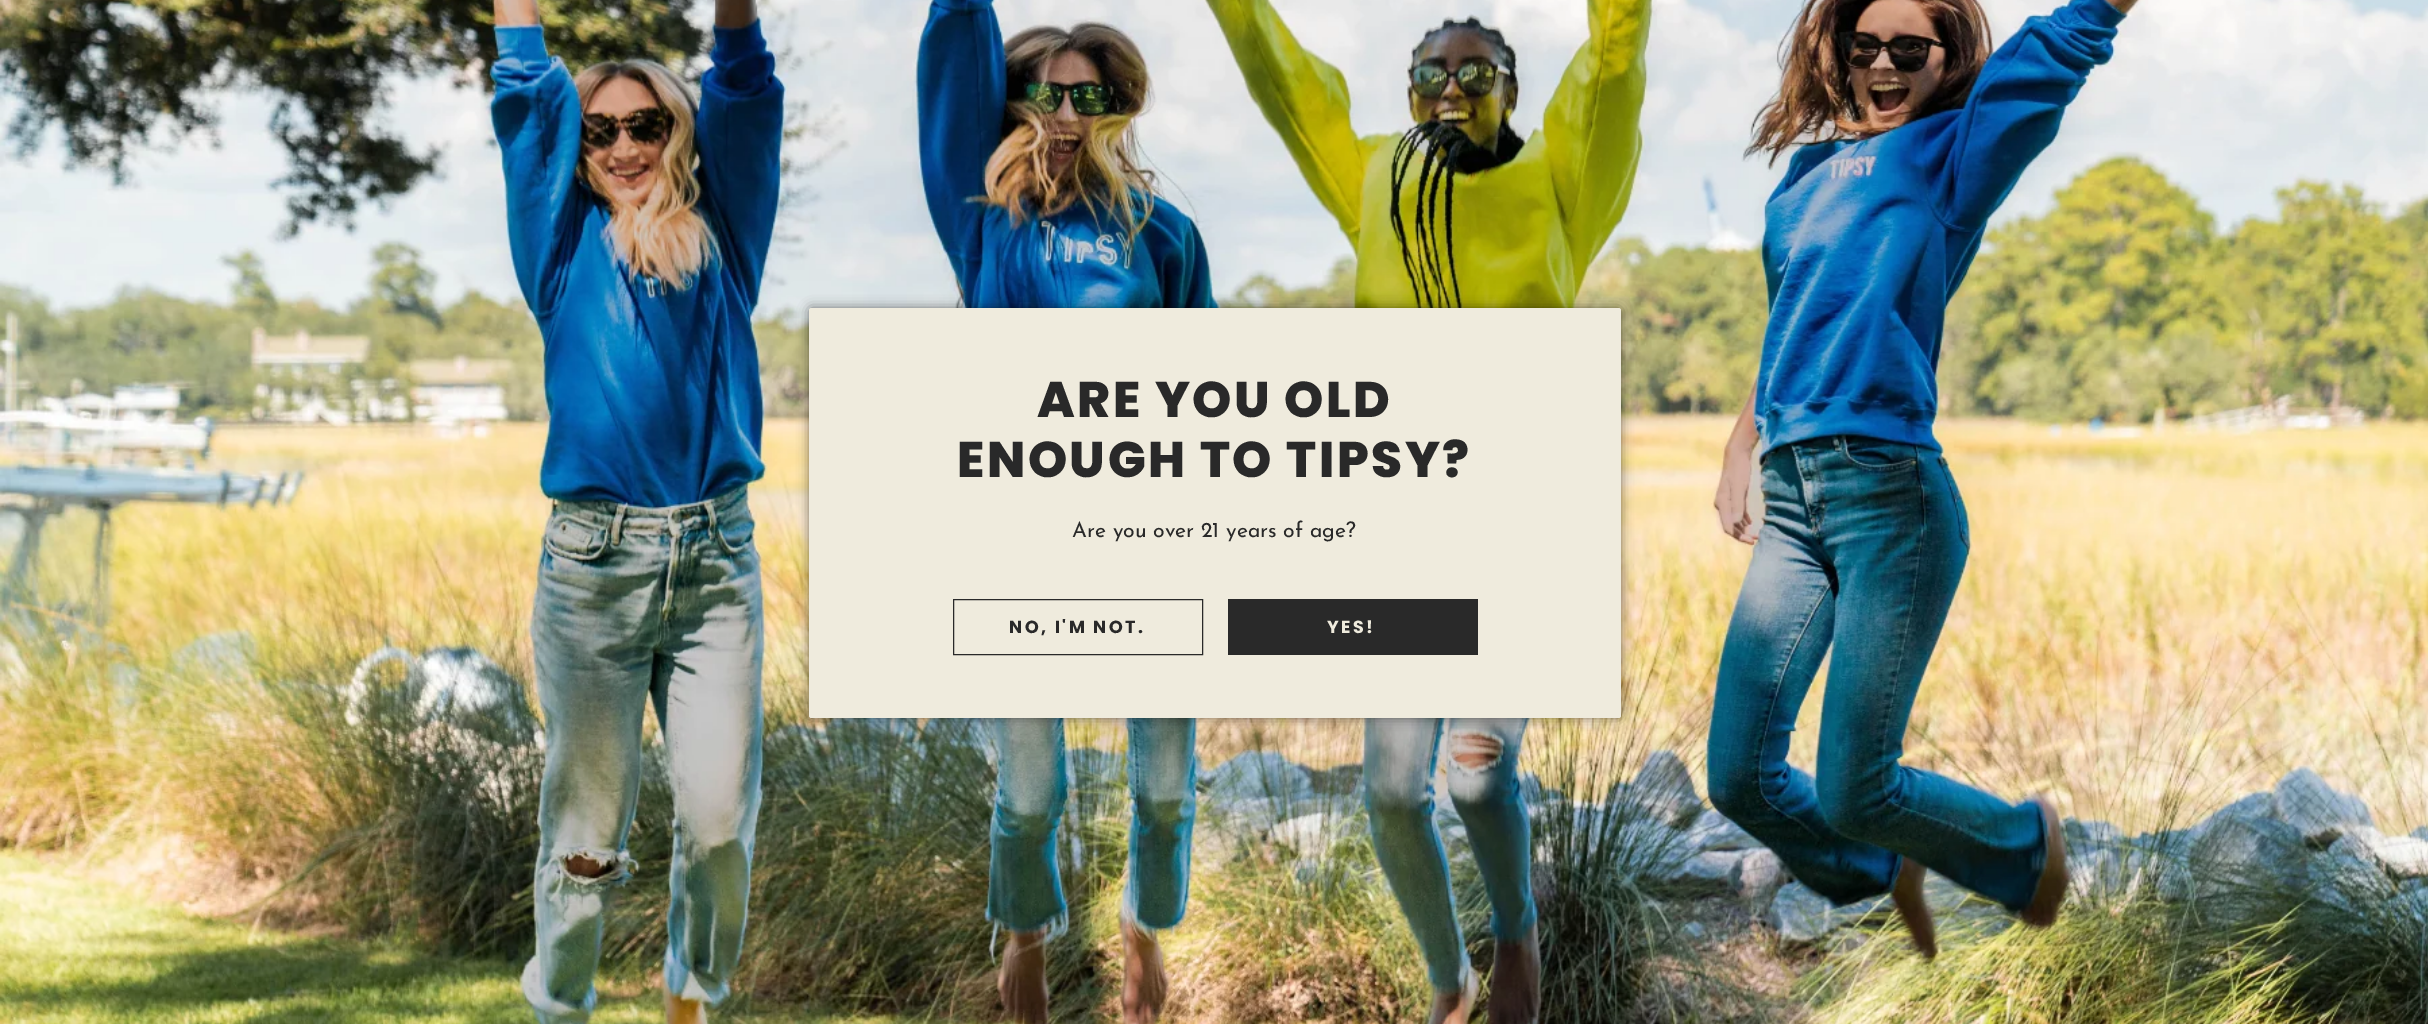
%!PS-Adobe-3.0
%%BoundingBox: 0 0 2428 1024
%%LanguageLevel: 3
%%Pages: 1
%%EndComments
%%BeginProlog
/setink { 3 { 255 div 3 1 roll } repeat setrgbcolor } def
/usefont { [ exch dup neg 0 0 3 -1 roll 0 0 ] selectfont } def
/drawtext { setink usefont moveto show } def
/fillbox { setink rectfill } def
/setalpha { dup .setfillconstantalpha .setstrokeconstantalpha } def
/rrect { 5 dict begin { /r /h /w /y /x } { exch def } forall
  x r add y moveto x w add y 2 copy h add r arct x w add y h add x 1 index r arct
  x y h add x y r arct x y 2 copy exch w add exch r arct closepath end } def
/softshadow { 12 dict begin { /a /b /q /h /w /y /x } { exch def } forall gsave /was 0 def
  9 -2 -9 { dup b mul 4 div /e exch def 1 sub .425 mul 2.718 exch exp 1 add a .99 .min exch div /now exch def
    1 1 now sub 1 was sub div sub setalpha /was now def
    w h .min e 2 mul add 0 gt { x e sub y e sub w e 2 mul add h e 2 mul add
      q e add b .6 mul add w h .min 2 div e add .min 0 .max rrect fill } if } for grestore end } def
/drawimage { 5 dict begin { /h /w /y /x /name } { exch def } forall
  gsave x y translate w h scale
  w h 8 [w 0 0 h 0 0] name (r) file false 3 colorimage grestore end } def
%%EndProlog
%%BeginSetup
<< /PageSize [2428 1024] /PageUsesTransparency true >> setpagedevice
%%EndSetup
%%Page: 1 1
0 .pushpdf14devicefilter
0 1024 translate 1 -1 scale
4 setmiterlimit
0 0 2428 1024 255 255 255 fillbox
(assets/img1.rgb) 0 0 2428 1024 drawimage
0 0 0 setink
809 308 812 410 2.5 6 0.5 softshadow
239 235 221 setink
809 308 812 410 2.5 rrect fill
/Poppins-ExtraBold 50 usefont
41 41 41 setink
1037 417 moveto 2.5 0 (ARE YOU OLD) ashow
957 477 moveto 2.5 0 (ENOUGH TO TIPSY?) ashow
(Are you over 21 years of age?) 1072 537 /JosefinSans-Regular 21.25 41 41 41 drawtext
953.5 599.5 249 55 rectstroke
/Poppins-Bold 17.5 usefont
1009 633 moveto 2.5 0 (NO, I'M NOT.) ashow
1228 599 250 56 41 41 41 fillbox
239 235 221 setink
1327 633 moveto 2.5 0 (YES!) ashow
.poppdf14devicefilter showpage
%%EOF
